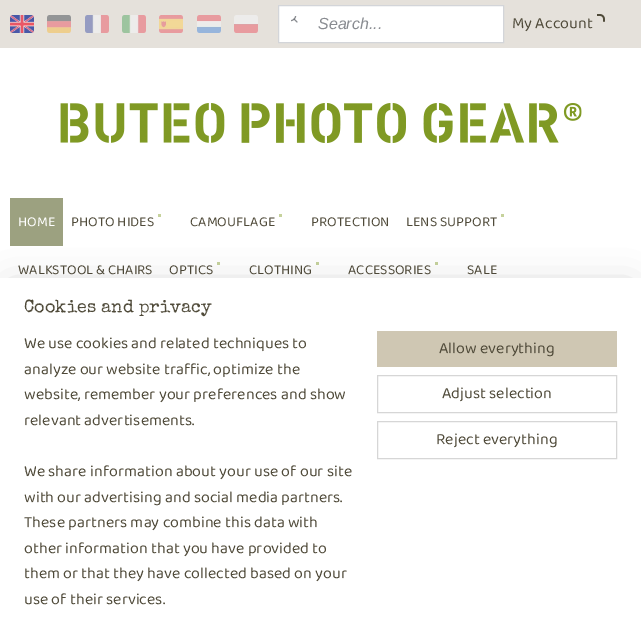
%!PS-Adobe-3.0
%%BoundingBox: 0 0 641 637
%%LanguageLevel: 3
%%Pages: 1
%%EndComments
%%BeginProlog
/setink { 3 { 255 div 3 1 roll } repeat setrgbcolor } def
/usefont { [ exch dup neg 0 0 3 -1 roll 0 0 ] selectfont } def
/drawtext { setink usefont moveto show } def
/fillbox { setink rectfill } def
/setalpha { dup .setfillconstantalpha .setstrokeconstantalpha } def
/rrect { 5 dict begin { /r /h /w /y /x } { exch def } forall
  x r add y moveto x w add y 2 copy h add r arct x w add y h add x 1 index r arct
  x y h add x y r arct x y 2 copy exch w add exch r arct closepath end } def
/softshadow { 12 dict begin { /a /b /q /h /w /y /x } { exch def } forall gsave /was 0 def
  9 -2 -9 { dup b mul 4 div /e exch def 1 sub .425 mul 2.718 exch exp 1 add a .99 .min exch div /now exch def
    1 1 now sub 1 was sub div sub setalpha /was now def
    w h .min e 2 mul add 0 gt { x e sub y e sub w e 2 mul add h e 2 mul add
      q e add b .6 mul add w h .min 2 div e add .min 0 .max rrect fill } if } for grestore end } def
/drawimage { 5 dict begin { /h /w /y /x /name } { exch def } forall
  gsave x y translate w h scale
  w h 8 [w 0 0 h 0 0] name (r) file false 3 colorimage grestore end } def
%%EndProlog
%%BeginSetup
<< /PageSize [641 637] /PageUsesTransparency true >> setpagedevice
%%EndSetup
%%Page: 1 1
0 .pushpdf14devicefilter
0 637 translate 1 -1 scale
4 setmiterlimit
0 0 641 637 255 255 255 fillbox
0 0 641 48 229 225 219 fillbox
(assets/img1.rgb) 10 15 24 18 drawimage
(assets/img2.rgb) 47 15 24 18 drawimage
(assets/img3.rgb) 85 15 24 18 drawimage
(assets/img4.rgb) 122 15 24 18 drawimage
(assets/img5.rgb) 159 15 24 18 drawimage
(assets/img6.rgb) 197 15 24 18 drawimage
(assets/img7.rgb) 234 15 24 18 drawimage
255 255 255 setink
278.5 5.5 moveto 503.5 5.5 lineto 503.5 42.5 lineto 278.5 42.5 lineto closepath gsave fill grestore
211 213 217 setink
stroke
(assets/img8.rgb) 291 16 7 7 drawimage
(Search...) 318 29 /LiberationSans-Italic 16 137 140 145 drawtext
(My Account) 512 28 /Baloo2-Regular 16 79 74 57 drawtext
(assets/img9.rgb) 597 14 8 8 drawimage
(assets/img10.rgb) 60 103 522 40 drawimage
10 198 53 48 156 161 128 fillbox
(HOME) 18 226 /Baloo2-Regular 14 255 255 255 drawtext
158 214 3 3 198 210 156 fillbox
(PHOTO HIDES) 71 226 /Baloo2-Regular 14 79 74 57 drawtext
279 214 3 3 198 210 156 fillbox
(CAMOUFLAGE) 190 226 /Baloo2-Regular 14 79 74 57 drawtext
(PROTECTION) 311 226 /Baloo2-Regular 14 79 74 57 drawtext
501 214 3 3 198 210 156 fillbox
(LENS SUPPORT) 406 226 /Baloo2-Regular 14 79 74 57 drawtext
(WALKSTOOL & CHAIRS) 18 274 /Baloo2-Regular 14 79 74 57 drawtext
217 262 3 3 198 210 156 fillbox
(OPTICS) 169 274 /Baloo2-Regular 14 79 74 57 drawtext
316 262 3 3 198 210 156 fillbox
(CLOTHING) 249 274 /Baloo2-Regular 14 79 74 57 drawtext
435 262 3 3 198 210 156 fillbox
(ACCESSORIES) 348 274 /Baloo2-Regular 14 79 74 57 drawtext
(SALE) 467 274 /Baloo2-Regular 14 79 74 57 drawtext
0 0 0 setink
10 288 621 339 0 18 0.2 softshadow
0 278 641 359 255 255 255 fillbox
(Cookies and privacy) 24 312 /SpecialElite-Regular 18 79 74 57 drawtext
(We use cookies and related techniques to) 24 348 /Baloo2-Regular 16 79 74 57 drawtext
(analyze our website traffic, optimize the) 24 374 /Baloo2-Regular 16 79 74 57 drawtext
(website, remember your preferences and show) 24 399 /Baloo2-Regular 16 79 74 57 drawtext
(relevant advertisements.) 24 425 /Baloo2-Regular 16 79 74 57 drawtext
(We share information about your use of our site) 24 476 /Baloo2-Regular 16 79 74 57 drawtext
(with our advertising and social media partners.) 24 502 /Baloo2-Regular 16 79 74 57 drawtext
(These partners may combine this data with) 24 527 /Baloo2-Regular 16 79 74 57 drawtext
(other information that you have provided to) 24 553 /Baloo2-Regular 16 79 74 57 drawtext
(them or that they have collected based on your) 24 578 /Baloo2-Regular 16 79 74 57 drawtext
(use of their services.) 24 604 /Baloo2-Regular 16 79 74 57 drawtext
377 331 240 36 207 199 179 fillbox
(Allow everything) 439 353 /Baloo2-Regular 16 79 74 57 drawtext
214 214 214 setink
377.5 375.5 239 37 rectstroke
(Adjust selection) 442 398 /Baloo2-Regular 16 79 74 57 drawtext
214 214 214 setink
377.5 421.5 239 37 rectstroke
(Reject everything) 436 444 /Baloo2-Regular 16 79 74 57 drawtext
.poppdf14devicefilter showpage
%%EOF
